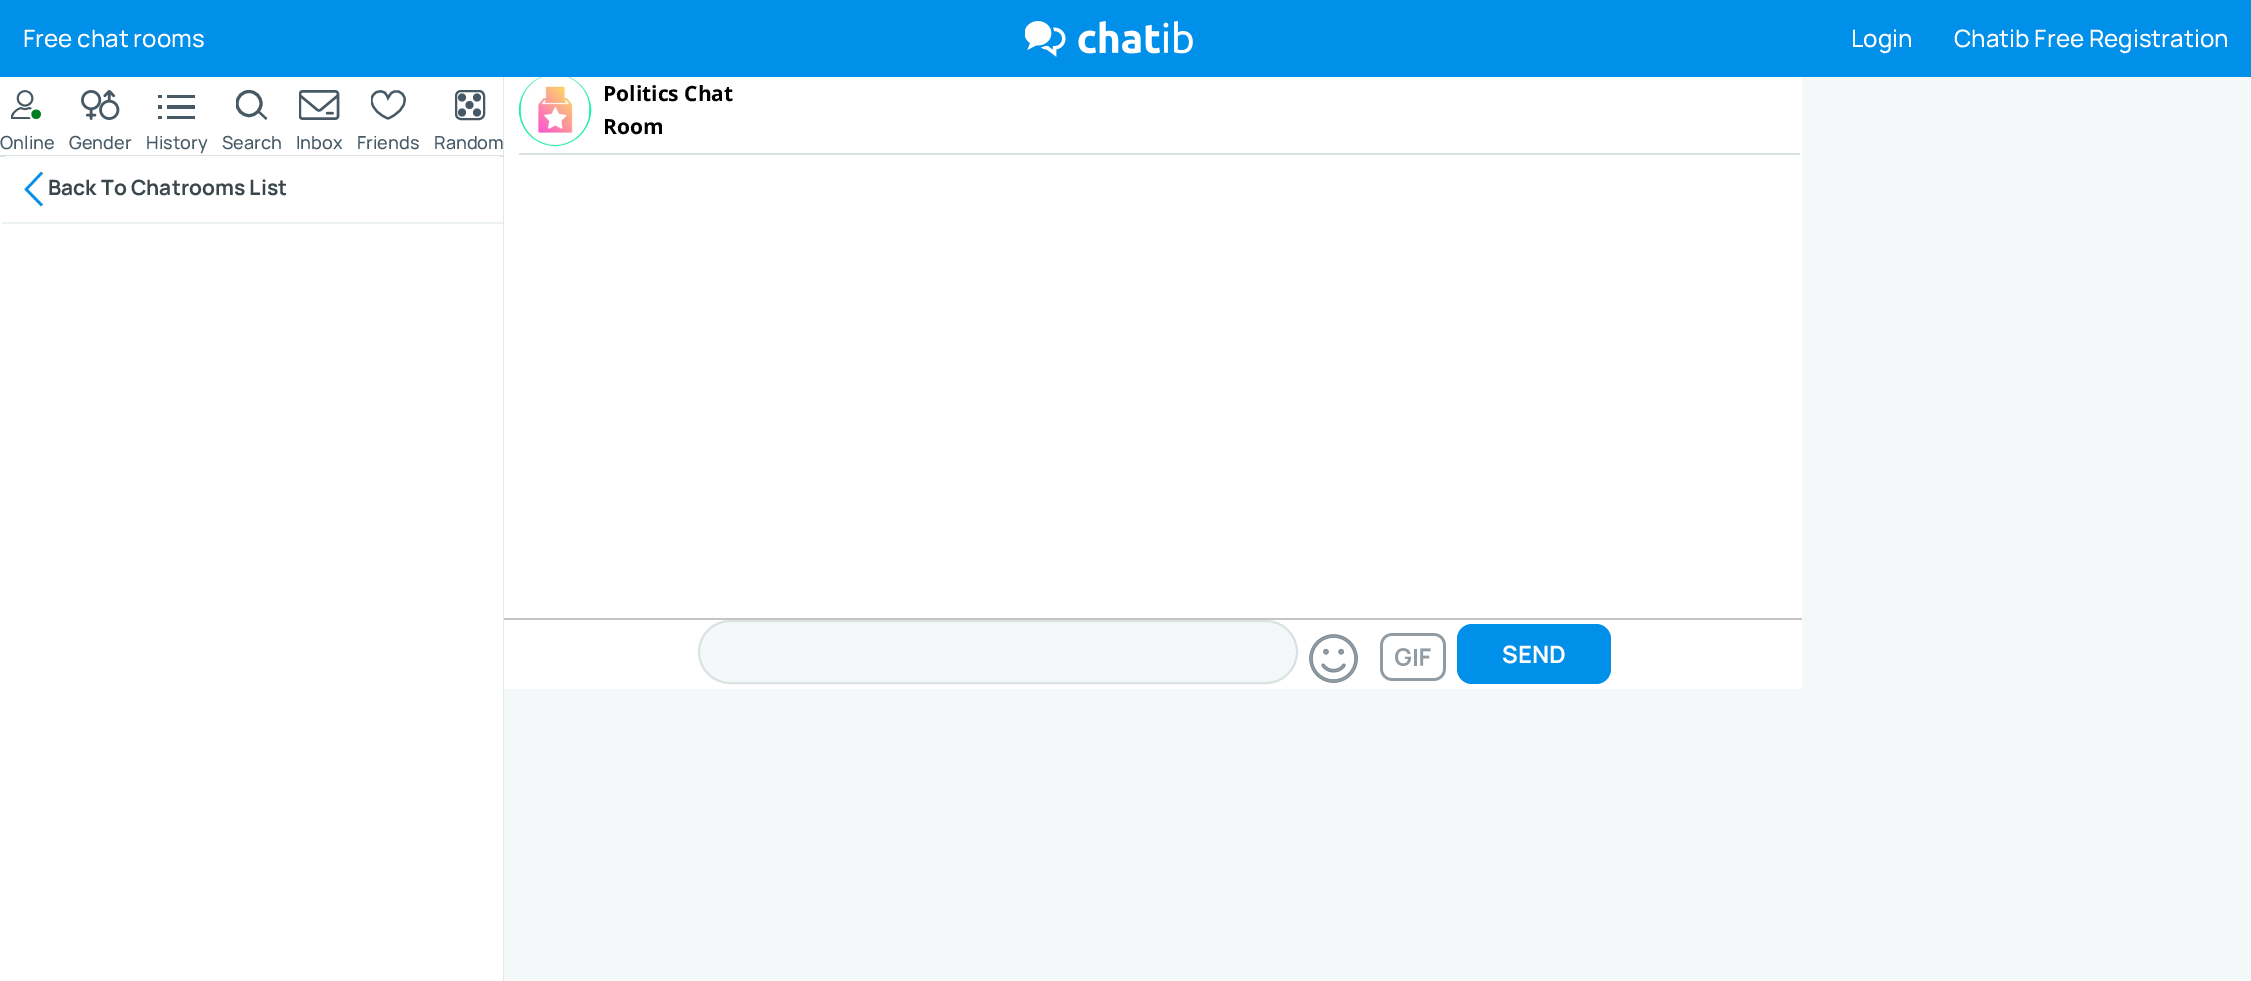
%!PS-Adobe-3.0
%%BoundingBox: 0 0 2251 981
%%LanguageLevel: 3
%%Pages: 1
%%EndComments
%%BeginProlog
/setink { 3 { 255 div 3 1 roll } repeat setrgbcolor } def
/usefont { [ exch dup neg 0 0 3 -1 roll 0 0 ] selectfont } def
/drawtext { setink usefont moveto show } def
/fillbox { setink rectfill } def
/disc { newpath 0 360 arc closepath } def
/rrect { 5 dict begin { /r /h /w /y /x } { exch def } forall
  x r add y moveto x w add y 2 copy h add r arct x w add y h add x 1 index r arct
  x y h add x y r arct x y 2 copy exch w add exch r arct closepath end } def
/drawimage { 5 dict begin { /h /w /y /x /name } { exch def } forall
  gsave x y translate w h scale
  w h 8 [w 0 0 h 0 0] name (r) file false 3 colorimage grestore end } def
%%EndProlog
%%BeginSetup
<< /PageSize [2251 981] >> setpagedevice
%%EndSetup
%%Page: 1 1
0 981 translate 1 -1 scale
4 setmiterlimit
0 0 2251 981 245 248 248 fillbox
503 74 1 907 230 230 230 fillbox
504 77 1298 612 255 255 255 fillbox
15 245 167 setink
2 setlinewidth
555 110 35 disc stroke
0 0 2251 77 0 143 233 fillbox
(Free chat rooms) 23 47 /Manrope-Medium 24 255 255 255 drawtext
(assets/img1.rgb) 1025 21 168 36 drawimage
(Login) 1851 47 /Manrope-Medium 24 255 255 255 drawtext
(Chatib Free Registration) 1954 47 /Manrope-Medium 24 255 255 255 drawtext
0 77 503 904 255 255 255 fillbox
0 155 504 2 217 227 228 fillbox
(assets/img2.rgb) 11 90 30 29 drawimage
(Online) 0 149 /Manrope-Medium 18 71 89 101 drawtext
(assets/img3.rgb) 81 90 39 30 drawimage
(Gender) 69 149 /Manrope-Medium 18 71 89 101 drawtext
167 95 28 3 71 89 101 fillbox
158 95 4 3 71 89 101 fillbox
167 105 28 4 71 89 101 fillbox
158 105 4 4 71 89 101 fillbox
167 116 28 3 71 89 101 fillbox
158 116 4 3 71 89 101 fillbox
(History) 146 149 /Manrope-Medium 18 71 89 101 drawtext
gsave
236 89 33 31 rectclip
3 setlinewidth
249 103.5 12 disc stroke
grestore
2.2 setlinewidth
258 111 moveto 266.5 119 lineto stroke
(Search) 222 149 /Manrope-Medium 18 71 89 101 drawtext
(assets/img4.rgb) 299 90 41 30 drawimage
(Inbox) 296 149 /Manrope-Medium 18 71 89 101 drawtext
gsave
371 89 36 31 rectclip
371.5 100 moveto 371.5 93 379.5 88.5 385 93 curveto 386.5 94.5 387.5 96.5 388 98 curveto 390.5 94 lineto 395 88.5 403 91.5 404.5 98 curveto 406.5 107.5 395.5 115.5 388 118.5 curveto 380.5 115.5 371.5 109 371.5 100 curveto closepath stroke
grestore
(Friends) 357 149 /Manrope-Medium 18 71 89 101 drawtext
2 setlinewidth
456 91 28 28 5 rrect stroke
462 97.5 4 disc fill
477 97.5 4 disc fill
469.5 105 4 disc fill
462 112.5 4 disc fill
477 112.5 4 disc fill
(Random) 434 149 /Manrope-Medium 18 71 89 101 drawtext
255 255 255 setink
8 156 moveto 497 156 lineto 500.5 156 503 158.5 503 162 curveto 503 224 lineto 2 224 lineto 2 162 lineto 2 158.5 4.5 156 8 156 curveto closepath fill
2 222 501 2 236 241 242 fillbox
(assets/img5.rgb) 24 171 20 36 drawimage
(Back To Chatrooms List) 48 195 /Manrope-Bold 21 58 72 76 drawtext
519 153 1281 2 217 226 228 fillbox
(assets/img6.rgb) 520 77 70 69 drawimage
(Politics Chat) 603 101 /OpenSans-Bold 21 0 0 0 drawtext
(Room) 603 134 /OpenSans-Bold 21 0 0 0 drawtext
504 618 1298 2 196 196 196 fillbox
245 248 248 setink
699 621 598 62 31 rrect gsave fill grestore
217 227 228 setink
stroke
(assets/img7.rgb) 1309 634 49 49 drawimage
(assets/img8.rgb) 1380 633 66 48 drawimage
0 143 233 setink
1457 624 154 60 15 rrect fill
(SEND) 1502 663 /Manrope-Bold 24 255 255 255 drawtext
showpage
%%EOF
